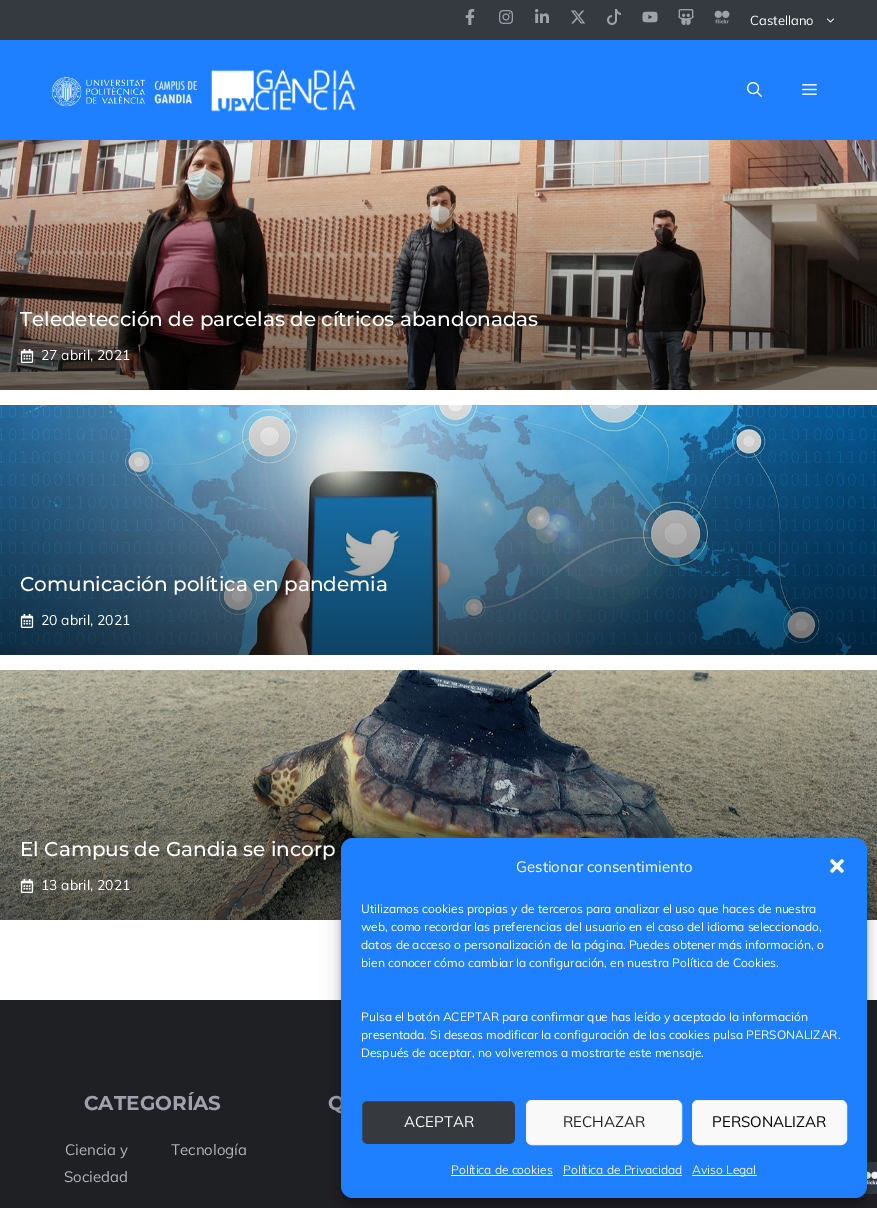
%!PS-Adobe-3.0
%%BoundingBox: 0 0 877 1208
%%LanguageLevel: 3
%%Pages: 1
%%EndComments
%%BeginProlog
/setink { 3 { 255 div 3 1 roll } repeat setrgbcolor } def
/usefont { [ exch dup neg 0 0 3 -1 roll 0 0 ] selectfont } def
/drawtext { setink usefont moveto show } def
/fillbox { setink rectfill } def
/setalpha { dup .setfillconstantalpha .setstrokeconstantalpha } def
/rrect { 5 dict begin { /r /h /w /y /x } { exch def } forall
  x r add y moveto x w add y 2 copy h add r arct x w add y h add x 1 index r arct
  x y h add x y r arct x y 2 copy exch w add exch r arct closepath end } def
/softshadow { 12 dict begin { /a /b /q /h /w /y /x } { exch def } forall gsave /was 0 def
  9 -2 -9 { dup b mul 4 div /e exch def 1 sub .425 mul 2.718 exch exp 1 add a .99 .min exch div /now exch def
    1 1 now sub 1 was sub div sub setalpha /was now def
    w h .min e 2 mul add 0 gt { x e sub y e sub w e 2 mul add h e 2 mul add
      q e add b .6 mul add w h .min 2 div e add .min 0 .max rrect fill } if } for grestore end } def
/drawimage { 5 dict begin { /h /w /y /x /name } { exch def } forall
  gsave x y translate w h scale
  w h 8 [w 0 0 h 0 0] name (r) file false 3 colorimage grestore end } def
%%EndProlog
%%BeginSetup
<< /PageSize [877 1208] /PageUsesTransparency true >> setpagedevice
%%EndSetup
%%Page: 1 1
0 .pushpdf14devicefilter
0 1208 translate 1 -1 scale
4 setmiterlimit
0 0 877 1208 255 255 255 fillbox
0 0 877 40 52 58 64 fillbox
(assets/img1.rgb) 465 9 10 16 drawimage
(assets/img2.rgb) 499 10 14 14 drawimage
(assets/img3.rgb) 535 9 14 14 drawimage
(assets/img4.rgb) 571 10 15 14 drawimage
(assets/img5.rgb) 607 9 14 16 drawimage
(assets/img6.rgb) 642 11 16 12 drawimage
(assets/img7.rgb) 678 9 16 16 drawimage
(assets/img8.rgb) 714 10 16 14 drawimage
(Castellano) 750 25 /Muli-Regular 13 255 255 255 drawtext
(assets/img9.rgb) 827 18 7 5 drawimage
0 40 877 100 31 128 255 fillbox
(assets/img10.rgb) 51 77 146 30 drawimage
(assets/img11.rgb) 211 69 145 43 drawimage
(assets/img12.rgb) 747 82 15 15 drawimage
(assets/img13.rgb) 802 84 15 11 drawimage
(assets/img14.rgb) 0 140 877 250 drawimage
(Teledetección de parcelas de cítricos abandonadas) 20 326 /Montserrat-Medium 20 255 255 255 drawtext
(assets/img15.rgb) 20 349 14 14 drawimage
(27 abril, 2021) 41 360 /Muli-Regular 14 255 255 255 drawtext
(assets/img16.rgb) 0 405 877 250 drawimage
(Comunicación política en pandemia) 20 591 /Montserrat-Medium 20 255 255 255 drawtext
(assets/img17.rgb) 20 614 14 14 drawimage
(20 abril, 2021) 41 625 /Muli-Regular 14 255 255 255 drawtext
(assets/img18.rgb) 0 670 877 250 drawimage
(El Campus de Gandia se incorp) 20 856 /Montserrat-Medium 20 255 255 255 drawtext
(assets/img19.rgb) 20 879 14 14 drawimage
(13 abril, 2021) 41 890 /Muli-Regular 14 255 255 255 drawtext
0 1000 877 208 31 32 36 fillbox
(CATEGORÍAS) 84 1110 /Montserrat-Bold 20 160 161 173 drawtext
(Ciencia y) 65 1155 /Muli-Regular 15 181 183 191 drawtext
(Sociedad) 64 1182 /Muli-Regular 15 181 183 191 drawtext
(Tecnología) 171 1155 /Muli-Regular 15 181 183 191 drawtext
(Q) 328 1110 /Montserrat-Bold 20 160 161 173 drawtext
863 1162 14 32 52 58 64 fillbox
(assets/img20.rgb) 867 1171 10 14 drawimage
0 0 0 setink
341 844 526 360 12 3 0.23 softshadow
341 848 526 360 12 10 0.19 softshadow
31 128 255 setink
341 838 526 360 12 rrect fill
(Gestionar consentimiento) 516 872 /Muli-Regular 15 255 255 255 drawtext
(assets/img21.rgb) 830 859 14 14 drawimage
(Utilizamos cookies propias y de terceros para analizar el uso que haces de nuestra) 361 913 /Muli-Regular 12 255 255 255 drawtext
(web, como recordar las preferencias del usuario en el caso del idioma seleccionado,) 361 931 /Muli-Regular 12 255 255 255 drawtext
(datos de acceso o personalización de la página. Puedes obtener más información, o) 361 949 /Muli-Regular 12 255 255 255 drawtext
(bien conocer cómo cambiar la configuración, en nuestra Política de Cookies.) 361 967 /Muli-Regular 12 255 255 255 drawtext
(Pulsa el botón ACEPTAR para confirmar que has leído y aceptado la información) 361 1021 /Muli-Regular 12 255 255 255 drawtext
(presentada. Si deseas modificar la configuración de las cookies pulsa PERSONALIZAR.) 361 1039 /Muli-Regular 12 255 255 255 drawtext
(Después de aceptar, no volveremos a mostrarte este mensaje.) 361 1057 /Muli-Regular 12 255 255 255 drawtext
54 57 61 setink
361.5 1100.5 154 44 5.5 rrect gsave fill grestore
31 128 255 setink
stroke
(ACEPTAR) 404 1127 /Muli-Regular 15 255 255 255 drawtext
249 249 249 setink
526.5 1100.5 155 44 5.5 rrect gsave fill grestore
242 242 242 setink
stroke
(RECHAZAR) 563 1127 /Muli-Regular 15 34 34 34 drawtext
249 249 249 setink
692.5 1100.5 154 44 5.5 rrect gsave fill grestore
242 242 242 setink
stroke
(PERSONALIZAR) 712 1127 /Muli-Regular 15 0 0 0 drawtext
(Política de cookies) 451 1174 /Muli-Regular 12 238 241 241 drawtext
451 1175 102 1 238 241 241 fillbox
(Política de Privacidad) 563 1174 /Muli-Regular 12 238 241 241 drawtext
563 1175 119 1 238 241 241 fillbox
692 1175 65 1 238 241 241 fillbox
(Aviso Legal) 692 1174 /Muli-Regular 12 238 241 241 drawtext
.poppdf14devicefilter showpage
%%EOF
